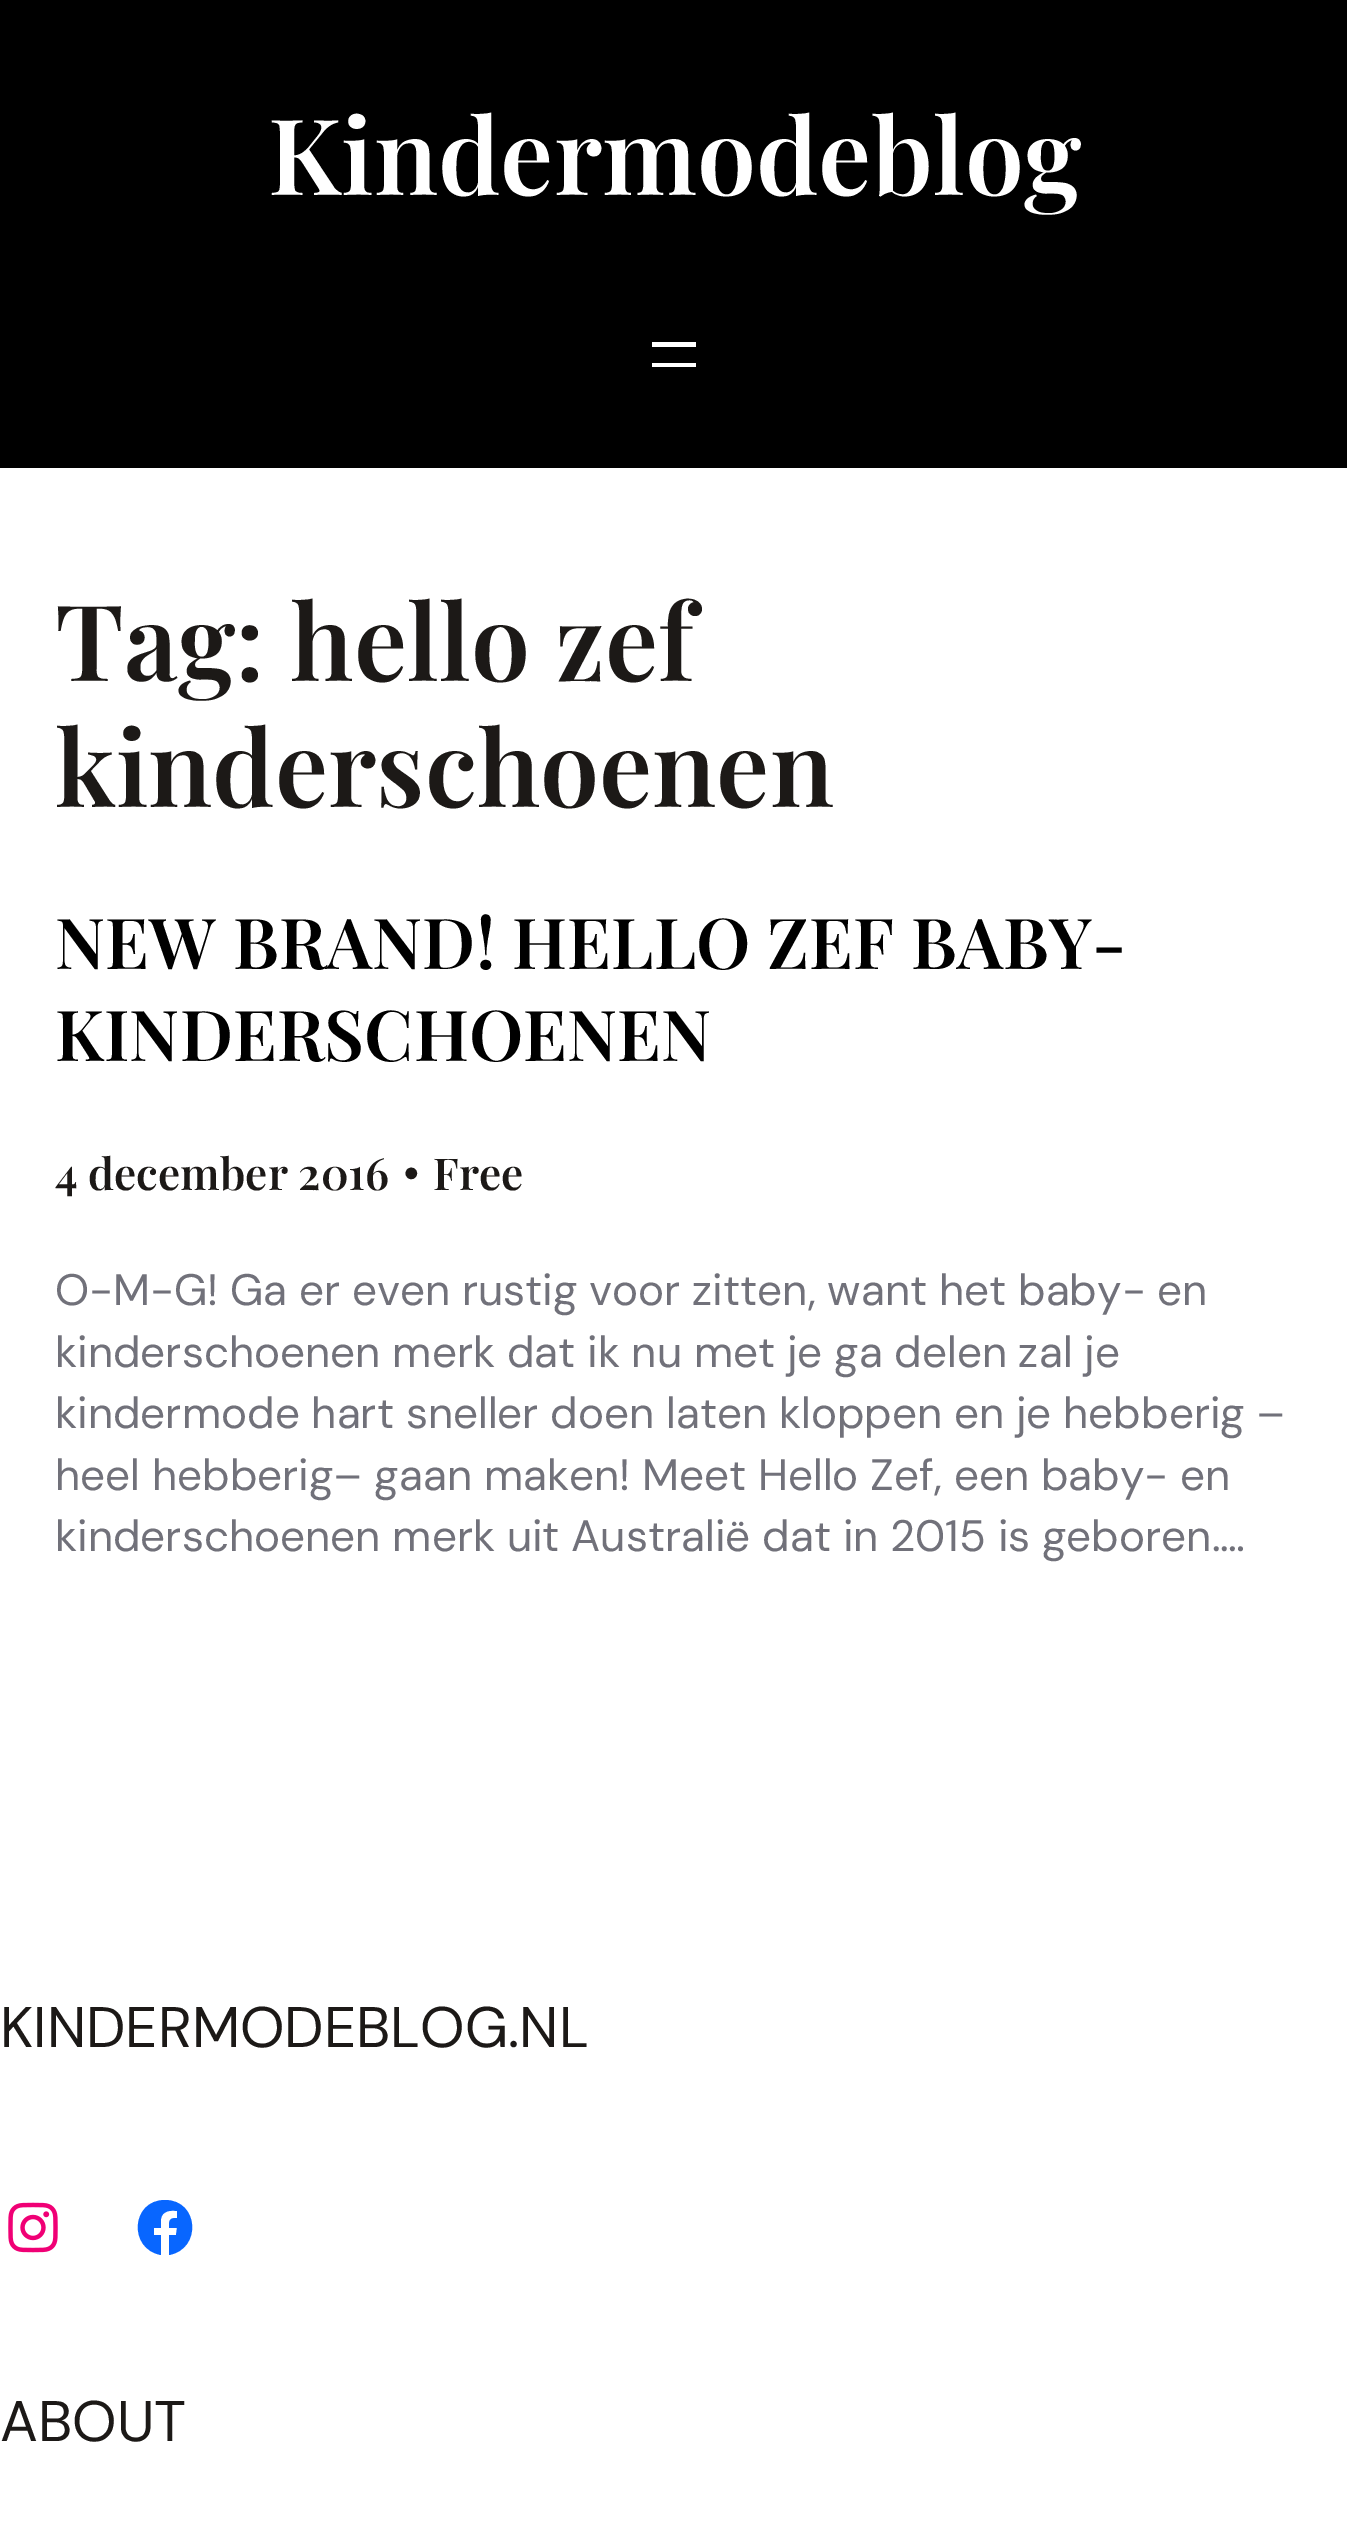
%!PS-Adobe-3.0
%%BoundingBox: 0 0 1347 2529
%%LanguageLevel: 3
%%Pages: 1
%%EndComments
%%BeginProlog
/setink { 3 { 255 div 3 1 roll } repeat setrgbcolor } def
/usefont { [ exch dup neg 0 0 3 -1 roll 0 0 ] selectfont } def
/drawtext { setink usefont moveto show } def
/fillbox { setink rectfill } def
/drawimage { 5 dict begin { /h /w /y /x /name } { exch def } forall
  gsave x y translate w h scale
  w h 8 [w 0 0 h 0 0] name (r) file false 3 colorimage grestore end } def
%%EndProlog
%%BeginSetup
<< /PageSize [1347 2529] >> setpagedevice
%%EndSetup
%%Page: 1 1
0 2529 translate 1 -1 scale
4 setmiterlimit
0 0 1347 2529 255 255 255 fillbox
0 0 1347 468 0 0 0 fillbox
(Kindermodeblog) 268 195 /PlayfairDisplay-SemiBold 105.5 255 255 255 drawtext
652 342 44 5 255 255 255 fillbox
652 363 44 4 255 255 255 fillbox
(Tag: hello zef) 55 681 /PlayfairDisplay-SemiBold 105.5 28 25 23 drawtext
(kinderschoenen) 55 807 /PlayfairDisplay-SemiBold 105.5 28 25 23 drawtext
(NEW BRAND! HELLO ZEF BABY-) 55 969 /PlayfairDisplay-SemiBold 70.25 0 0 0 drawtext
(KINDERSCHOENEN) 55 1061 /PlayfairDisplay-SemiBold 70.25 0 0 0 drawtext
(4 december 2016) 55 1190 /PlayfairDisplay-SemiBold 44 28 25 23 drawtext
(•) 403 1188 /DMSans-SemiBold 44 28 25 23 drawtext
(Free) 433 1190 /PlayfairDisplay-SemiBold 44 28 25 23 drawtext
(O-M-G! Ga er even rustig voor zitten, want het baby- en) 55 1305 /DMSans-Regular 44 113 113 122 drawtext
(kinderschoenen merk dat ik nu met je ga delen zal je) 55 1367 /DMSans-Regular 44 113 113 122 drawtext
(kindermode hart sneller doen laten kloppen en je hebberig –) 55 1428 /DMSans-Regular 44 113 113 122 drawtext
(heel hebberig– gaan maken! Meet Hello Zef, een baby- en) 55 1490 /DMSans-Regular 44 113 113 122 drawtext
(kinderschoenen merk uit Australië dat in 2015 is geboren.…) 55 1551 /DMSans-Regular 44 113 113 122 drawtext
(KINDERMODEBLOG.NL) 0 2047 /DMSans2-Regular 57.1 28 25 23 drawtext
(assets/img1.rgb) 8 2202 50 51 drawimage
8 102 255 setink
165 2200 moveto 131 2200 128 2249 161 2255 curveto 161 2235 lineto 154 2235 lineto 154 2228 lineto 161 2228 lineto 161 2219 lineto 162 2211 170 2210 177 2211 curveto 177 2218 lineto 169 2218 169 2220 169 2228 curveto 177 2228 lineto 176 2235 lineto 169 2235 lineto 169 2255 lineto 202 2249 199 2200 165 2200 curveto closepath fill
(ABOUT) 0 2441 /DMSans2-Regular 57.1 28 25 23 drawtext
showpage
%%EOF
